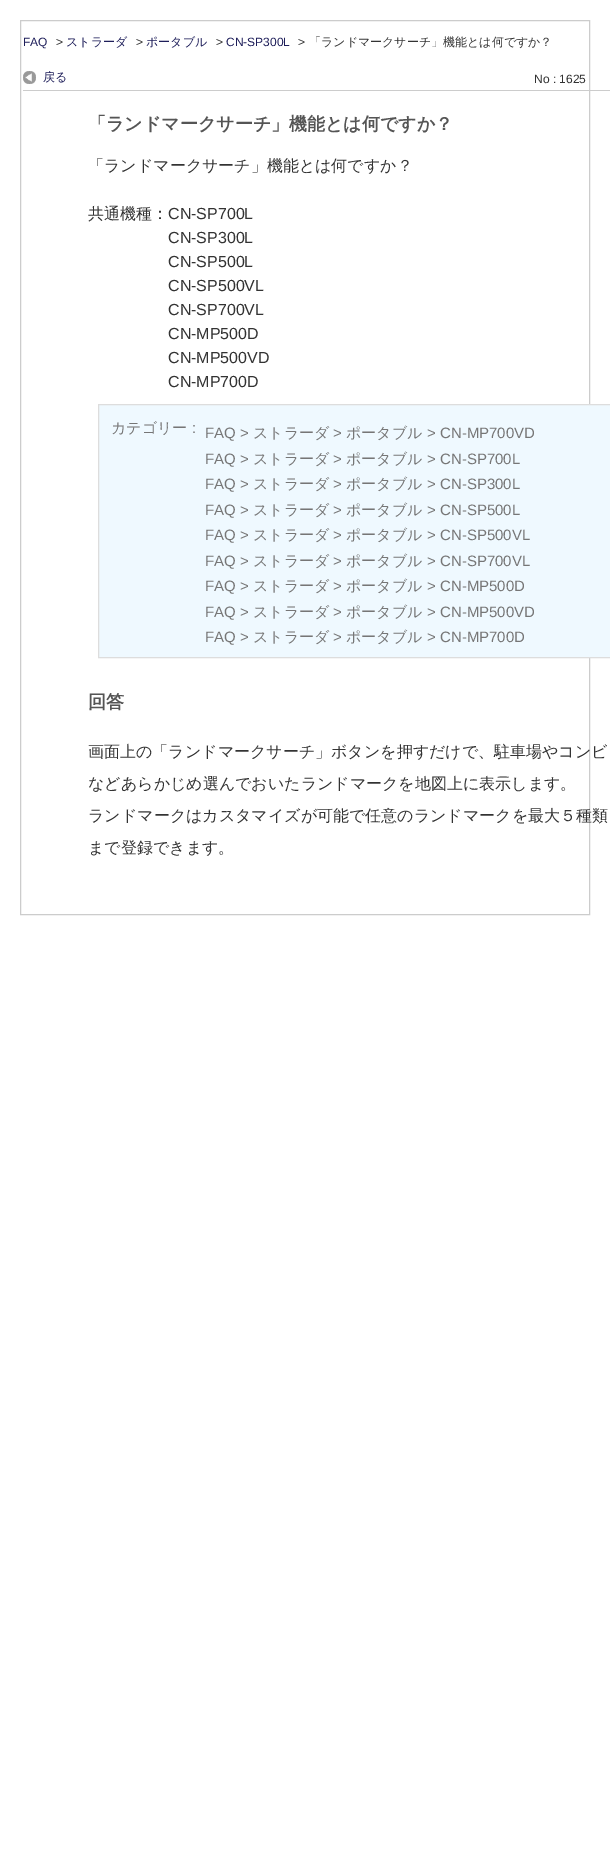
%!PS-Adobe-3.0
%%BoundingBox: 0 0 610 1868
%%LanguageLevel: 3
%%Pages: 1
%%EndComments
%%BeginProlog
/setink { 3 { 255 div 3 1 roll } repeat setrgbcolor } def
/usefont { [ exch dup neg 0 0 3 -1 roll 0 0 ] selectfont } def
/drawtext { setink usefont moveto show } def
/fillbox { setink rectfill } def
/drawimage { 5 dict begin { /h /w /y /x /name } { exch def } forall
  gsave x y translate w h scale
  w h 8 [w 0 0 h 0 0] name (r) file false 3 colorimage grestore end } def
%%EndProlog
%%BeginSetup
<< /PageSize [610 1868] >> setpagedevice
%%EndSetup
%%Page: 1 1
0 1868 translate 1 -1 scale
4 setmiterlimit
0 0 610 1868 255 255 255 fillbox
204 204 204 setink
20.5 20.5 569 894 rectstroke
(FAQ) 23 46 /LiberationSans-Regular 12 30 30 90 drawtext
(>) 56 46 /LiberationSans-Regular 12 51 51 51 drawtext
(ストラーダ) 66 46 /WenQuanYiZenHei-Medium 12 30 30 90 drawtext
(>) 136 46 /LiberationSans-Regular 12 51 51 51 drawtext
(ポータブル) 146 46 /WenQuanYiZenHei-Medium 12 30 30 90 drawtext
(>) 216 46 /LiberationSans-Regular 12 51 51 51 drawtext
(CN-SP300L) 226 46 /LiberationSans-Regular 12 30 30 90 drawtext
(>) 298 46 /LiberationSans-Regular 12 51 51 51 drawtext
(「ランドマークサーチ」機能とは何ですか？) 309 46 /WenQuanYiZenHei-Medium 12 51 51 51 drawtext
23 90 587 1 204 204 204 fillbox
(assets/img1.rgb) 23 71 13 13 drawimage
(戻る) 43 81 /WenQuanYiZenHei-Medium 12 30 30 90 drawtext
(No : 1625) 534 83 /LiberationSans-Regular 12 51 51 51 drawtext
(「ランドマークサーチ」機能とは何ですか？) 88 130 /WenQuanYiZenHei-Bold 18 85 85 85 drawtext
(「ランドマークサーチ」機能とは何ですか？) 88 171 /WenQuanYiZenHei-Medium 16 51 51 51 drawtext
(共通機種：) 88 219 /WenQuanYiZenHei-Medium 16 51 51 51 drawtext
(CN-SP700L) 168 219 /LiberationSans-Regular 16 51 51 51 drawtext
(CN-SP300L) 168 243 /LiberationSans-Regular 16 51 51 51 drawtext
(CN-SP500L) 168 267 /LiberationSans-Regular 16 51 51 51 drawtext
(CN-SP500VL) 168 291 /LiberationSans-Regular 16 51 51 51 drawtext
(CN-SP700VL) 168 315 /LiberationSans-Regular 16 51 51 51 drawtext
(CN-MP500D) 168 339 /LiberationSans-Regular 16 51 51 51 drawtext
(CN-MP500VD) 168 363 /LiberationSans-Regular 16 51 51 51 drawtext
(CN-MP700D) 168 387 /LiberationSans-Regular 16 51 51 51 drawtext
239 249 255 setink
98.5 404.5 moveto 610.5 404.5 lineto 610.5 657.5 lineto 98.5 657.5 lineto closepath gsave fill grestore
221 221 221 setink
stroke
(カテゴリー) 111 433 /WenQuanYiZenHei-Medium 15 118 118 118 drawtext
(:) 192 433 /LiberationSans-Regular 15 118 118 118 drawtext
(FAQ >) 205 438 /LiberationSans-Regular 15 118 118 118 drawtext
(ストラーダ) 253 438 /WenQuanYiZenHei-Medium 15 118 118 118 drawtext
(>) 333 438 /LiberationSans-Regular 15 118 118 118 drawtext
(ポータブル) 346 438 /WenQuanYiZenHei-Medium 15 118 118 118 drawtext
(> CN-MP700VD) 427 438 /LiberationSans-Regular 15 118 118 118 drawtext
(FAQ >) 205 464 /LiberationSans-Regular 15 118 118 118 drawtext
(ストラーダ) 253 464 /WenQuanYiZenHei-Medium 15 118 118 118 drawtext
(>) 333 464 /LiberationSans-Regular 15 118 118 118 drawtext
(ポータブル) 346 464 /WenQuanYiZenHei-Medium 15 118 118 118 drawtext
(> CN-SP700L) 427 464 /LiberationSans-Regular 15 118 118 118 drawtext
(FAQ >) 205 489 /LiberationSans-Regular 15 118 118 118 drawtext
(ストラーダ) 253 489 /WenQuanYiZenHei-Medium 15 118 118 118 drawtext
(>) 333 489 /LiberationSans-Regular 15 118 118 118 drawtext
(ポータブル) 346 489 /WenQuanYiZenHei-Medium 15 118 118 118 drawtext
(> CN-SP300L) 427 489 /LiberationSans-Regular 15 118 118 118 drawtext
(FAQ >) 205 515 /LiberationSans-Regular 15 118 118 118 drawtext
(ストラーダ) 253 515 /WenQuanYiZenHei-Medium 15 118 118 118 drawtext
(>) 333 515 /LiberationSans-Regular 15 118 118 118 drawtext
(ポータブル) 346 515 /WenQuanYiZenHei-Medium 15 118 118 118 drawtext
(> CN-SP500L) 427 515 /LiberationSans-Regular 15 118 118 118 drawtext
(FAQ >) 205 540 /LiberationSans-Regular 15 118 118 118 drawtext
(ストラーダ) 253 540 /WenQuanYiZenHei-Medium 15 118 118 118 drawtext
(>) 333 540 /LiberationSans-Regular 15 118 118 118 drawtext
(ポータブル) 346 540 /WenQuanYiZenHei-Medium 15 118 118 118 drawtext
(> CN-SP500VL) 427 540 /LiberationSans-Regular 15 118 118 118 drawtext
(FAQ >) 205 566 /LiberationSans-Regular 15 118 118 118 drawtext
(ストラーダ) 253 566 /WenQuanYiZenHei-Medium 15 118 118 118 drawtext
(>) 333 566 /LiberationSans-Regular 15 118 118 118 drawtext
(ポータブル) 346 566 /WenQuanYiZenHei-Medium 15 118 118 118 drawtext
(> CN-SP700VL) 427 566 /LiberationSans-Regular 15 118 118 118 drawtext
(FAQ >) 205 591 /LiberationSans-Regular 15 118 118 118 drawtext
(ストラーダ) 253 591 /WenQuanYiZenHei-Medium 15 118 118 118 drawtext
(>) 333 591 /LiberationSans-Regular 15 118 118 118 drawtext
(ポータブル) 346 591 /WenQuanYiZenHei-Medium 15 118 118 118 drawtext
(> CN-MP500D) 427 591 /LiberationSans-Regular 15 118 118 118 drawtext
(FAQ >) 205 617 /LiberationSans-Regular 15 118 118 118 drawtext
(ストラーダ) 253 617 /WenQuanYiZenHei-Medium 15 118 118 118 drawtext
(>) 333 617 /LiberationSans-Regular 15 118 118 118 drawtext
(ポータブル) 346 617 /WenQuanYiZenHei-Medium 15 118 118 118 drawtext
(> CN-MP500VD) 427 617 /LiberationSans-Regular 15 118 118 118 drawtext
(FAQ >) 205 642 /LiberationSans-Regular 15 118 118 118 drawtext
(ストラーダ) 253 642 /WenQuanYiZenHei-Medium 15 118 118 118 drawtext
(>) 333 642 /LiberationSans-Regular 15 118 118 118 drawtext
(ポータブル) 346 642 /WenQuanYiZenHei-Medium 15 118 118 118 drawtext
(> CN-MP700D) 427 642 /LiberationSans-Regular 15 118 118 118 drawtext
(回答) 88 708 /WenQuanYiZenHei-Bold 18 85 85 85 drawtext
(画面上の「ランドマークサーチ」ボタンを押すだけで、駐車場やコンビ) 88 757 /WenQuanYiZenHei-Medium 16 51 51 51 drawtext
(などあらかじめ選んでおいたランドマークを地図上に表示します。) 88 789 /WenQuanYiZenHei-Medium 16 51 51 51 drawtext
(ランドマークはカスタマイズが可能で任意のランドマークを最大５種類) 88 821 /WenQuanYiZenHei-Medium 16 51 51 51 drawtext
(まで登録できます。) 88 853 /WenQuanYiZenHei-Medium 16 51 51 51 drawtext
showpage
%%EOF
